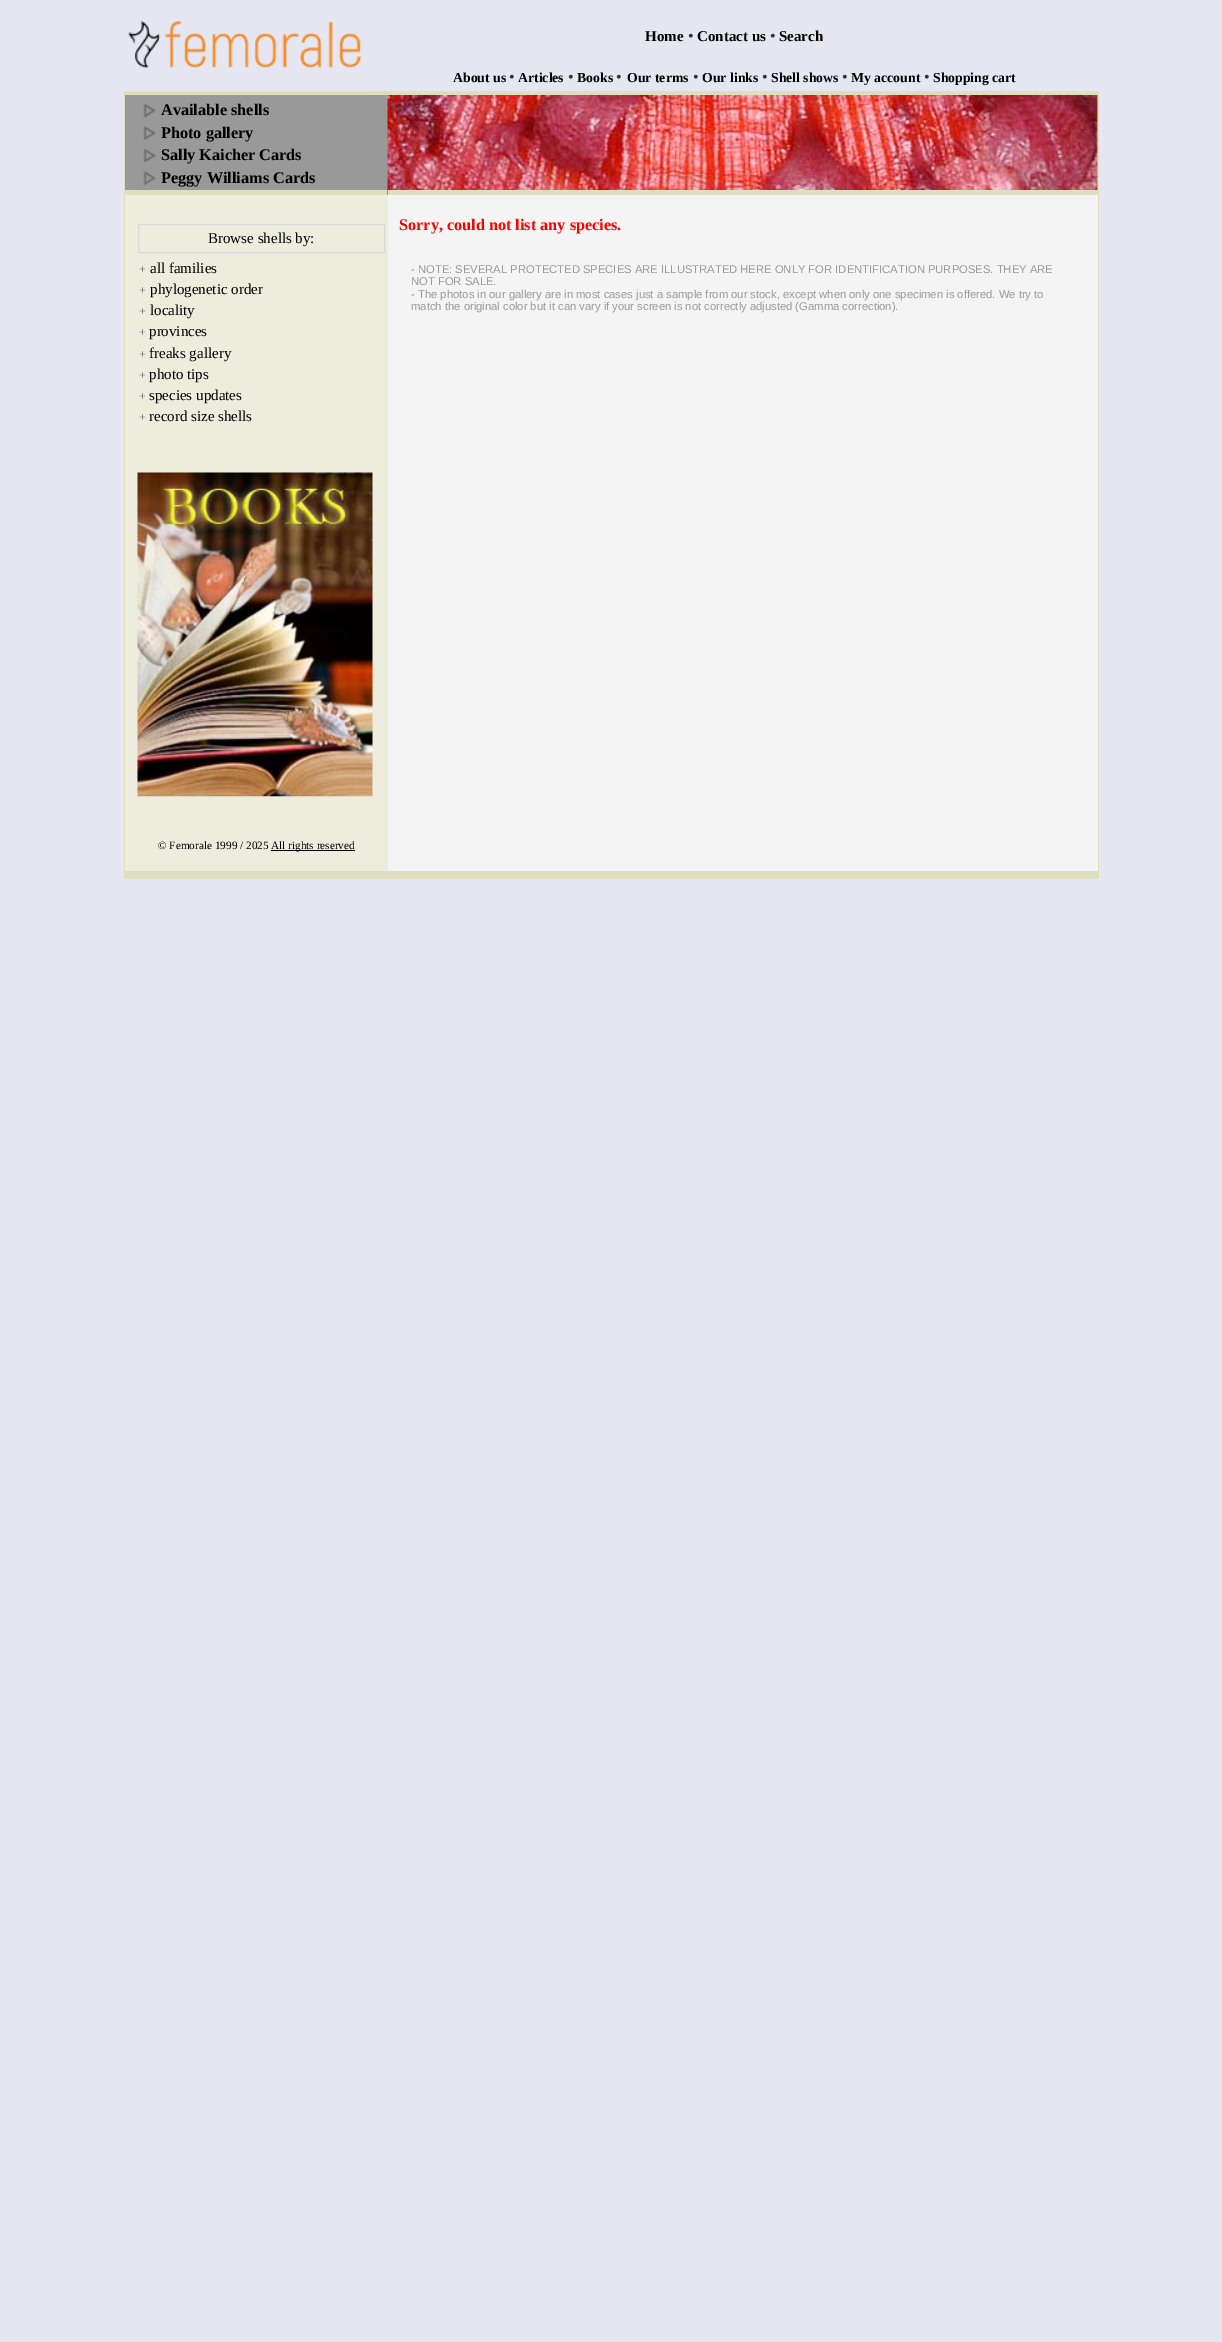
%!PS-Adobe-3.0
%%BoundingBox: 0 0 1222 2342
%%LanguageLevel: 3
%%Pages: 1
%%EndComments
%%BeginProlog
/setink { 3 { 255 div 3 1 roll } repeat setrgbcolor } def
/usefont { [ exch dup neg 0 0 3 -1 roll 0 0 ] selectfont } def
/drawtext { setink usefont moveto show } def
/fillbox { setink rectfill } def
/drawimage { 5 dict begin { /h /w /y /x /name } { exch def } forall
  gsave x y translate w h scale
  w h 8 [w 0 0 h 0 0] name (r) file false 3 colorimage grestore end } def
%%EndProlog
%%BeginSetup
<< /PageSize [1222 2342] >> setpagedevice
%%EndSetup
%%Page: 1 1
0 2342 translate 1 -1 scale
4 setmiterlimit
0 0 1222 2342 230 230 242 fillbox
124 91 975 4 223 223 191 fillbox
1098 91 1 788 223 223 191 fillbox
124 871 975 8 223 223 191 fillbox
124 91 1 788 223 223 191 fillbox
(assets/img1.rgb) 124 21 244 71 drawimage
(Home) 645 41 /LiberationSerif-Bold 15 0 0 0 drawtext
(•) 688 41 /LiberationSerif-Regular 16.25 51 51 51 drawtext
(Contact us) 697 41 /LiberationSerif-Bold 15 0 0 0 drawtext
(•) 770 41 /LiberationSerif-Regular 16.25 51 51 51 drawtext
(Search) 779 41 /LiberationSerif-Bold 15 0 0 0 drawtext
(About us) 453 82 /LiberationSerif-Bold 13.75 0 0 0 drawtext
(•) 509 82 /LiberationSerif-Regular 16.25 51 51 51 drawtext
(Articles) 518 82 /LiberationSerif-Bold 13.75 0 0 0 drawtext
(•) 568 82 /LiberationSerif-Regular 16.25 51 51 51 drawtext
(Books) 577 82 /LiberationSerif-Bold 13.75 0 0 0 drawtext
(•) 616 82 /LiberationSerif-Regular 16.25 51 51 51 drawtext
(Our terms) 627 82 /LiberationSerif-Bold 13.75 0 0 0 drawtext
(•) 693 82 /LiberationSerif-Regular 16.25 51 51 51 drawtext
(Our links) 702 82 /LiberationSerif-Bold 13.75 0 0 0 drawtext
(•) 762 82 /LiberationSerif-Regular 16.25 51 51 51 drawtext
(Shell shows) 771 82 /LiberationSerif-Bold 13.75 0 0 0 drawtext
(•) 842 82 /LiberationSerif-Regular 16.25 51 51 51 drawtext
(My account) 851 82 /LiberationSerif-Bold 13.75 0 0 0 drawtext
(•) 924 82 /LiberationSerif-Regular 16.25 51 51 51 drawtext
(Shopping cart) 933 82 /LiberationSerif-Bold 13.75 0 0 0 drawtext
125 95 263 95 153 153 153 fillbox
125 190 263 5 223 223 191 fillbox
(assets/img2.rgb) 143 103 13 15 drawimage
(Available shells) 161 115 /LiberationSerif-Bold 16.25 0 0 0 drawtext
(assets/img3.rgb) 143 126 13 14 drawimage
(Photo gallery) 161 138 /LiberationSerif-Bold 16.25 0 0 0 drawtext
(assets/img2.rgb) 143 148 13 15 drawimage
(Sally Kaicher Cards) 161 160 /LiberationSerif-Bold 16.25 0 0 0 drawtext
(assets/img3.rgb) 143 171 13 14 drawimage
(Peggy Williams Cards) 161 183 /LiberationSerif-Bold 16.25 0 0 0 drawtext
(assets/img4.rgb) 387 95 711 100 drawimage
388 190 710 5 223 223 191 fillbox
125 195 263 676 237 237 222 fillbox
216 216 216 setink
138.5 224.5 246 28 rectstroke
(Browse shells by:) 208 243 /LiberationSerif-Regular 15 0 0 0 drawtext
(+) 139 273 /LiberationSerif-Regular 12 102 102 102 drawtext
(all families) 150 273 /LiberationSerif-Regular 15 0 0 0 drawtext
(+) 139 294 /LiberationSerif-Regular 12 102 102 102 drawtext
(phylogenetic order) 150 294 /LiberationSerif-Regular 15 0 0 0 drawtext
(+) 139 315 /LiberationSerif-Regular 12 102 102 102 drawtext
(locality) 150 315 /LiberationSerif-Regular 15 0 0 0 drawtext
(+) 139 336 /LiberationSerif-Regular 12 102 102 102 drawtext
(provinces) 149 336 /LiberationSerif-Regular 15 0 0 0 drawtext
(+) 139 358 /LiberationSerif-Regular 12 102 102 102 drawtext
(freaks gallery) 149 358 /LiberationSerif-Regular 15 0 0 0 drawtext
(+) 139 379 /LiberationSerif-Regular 12 102 102 102 drawtext
(photo tips) 149 379 /LiberationSerif-Regular 15 0 0 0 drawtext
(+) 139 400 /LiberationSerif-Regular 12 102 102 102 drawtext
(species updates) 149 400 /LiberationSerif-Regular 15 0 0 0 drawtext
(+) 139 421 /LiberationSerif-Regular 12 102 102 102 drawtext
(record size shells) 149 421 /LiberationSerif-Regular 15 0 0 0 drawtext
(assets/img5.rgb) 137 472 236 325 drawimage
388 195 710 676 244 244 244 fillbox
(Sorry, could not list any species.) 399 230 /LiberationSerif-Bold 16.25 255 0 0 drawtext
(- NOTE: SEVERAL PROTECTED SPECIES ARE ILLUSTRATED HERE ONLY FOR IDENTIFICATION PURPOSES. THEY ARE) 411 273 /LiberationSans-Regular 11.25 153 153 153 drawtext
(NOT FOR SALE.) 411 285 /LiberationSans-Regular 11.25 153 153 153 drawtext
(- The photos in our gallery are in most cases just a sample from our stock, except when only one specimen is offered. We try to) 411 298 /LiberationSans-Regular 11.25 153 153 153 drawtext
(match the original color but it can vary if your screen is not correctly adjusted \(Gamma correction\).) 411 310 /LiberationSans-Regular 11.25 153 153 153 drawtext
(© Femorale 1999 / 2025) 158 849 /LiberationSerif-Regular 11.25 0 0 0 drawtext
271 850 84 1 0 0 0 fillbox
(All rights reserved) 271 849 /LiberationSerif-Regular 11.25 0 0 0 drawtext
showpage
%%EOF
